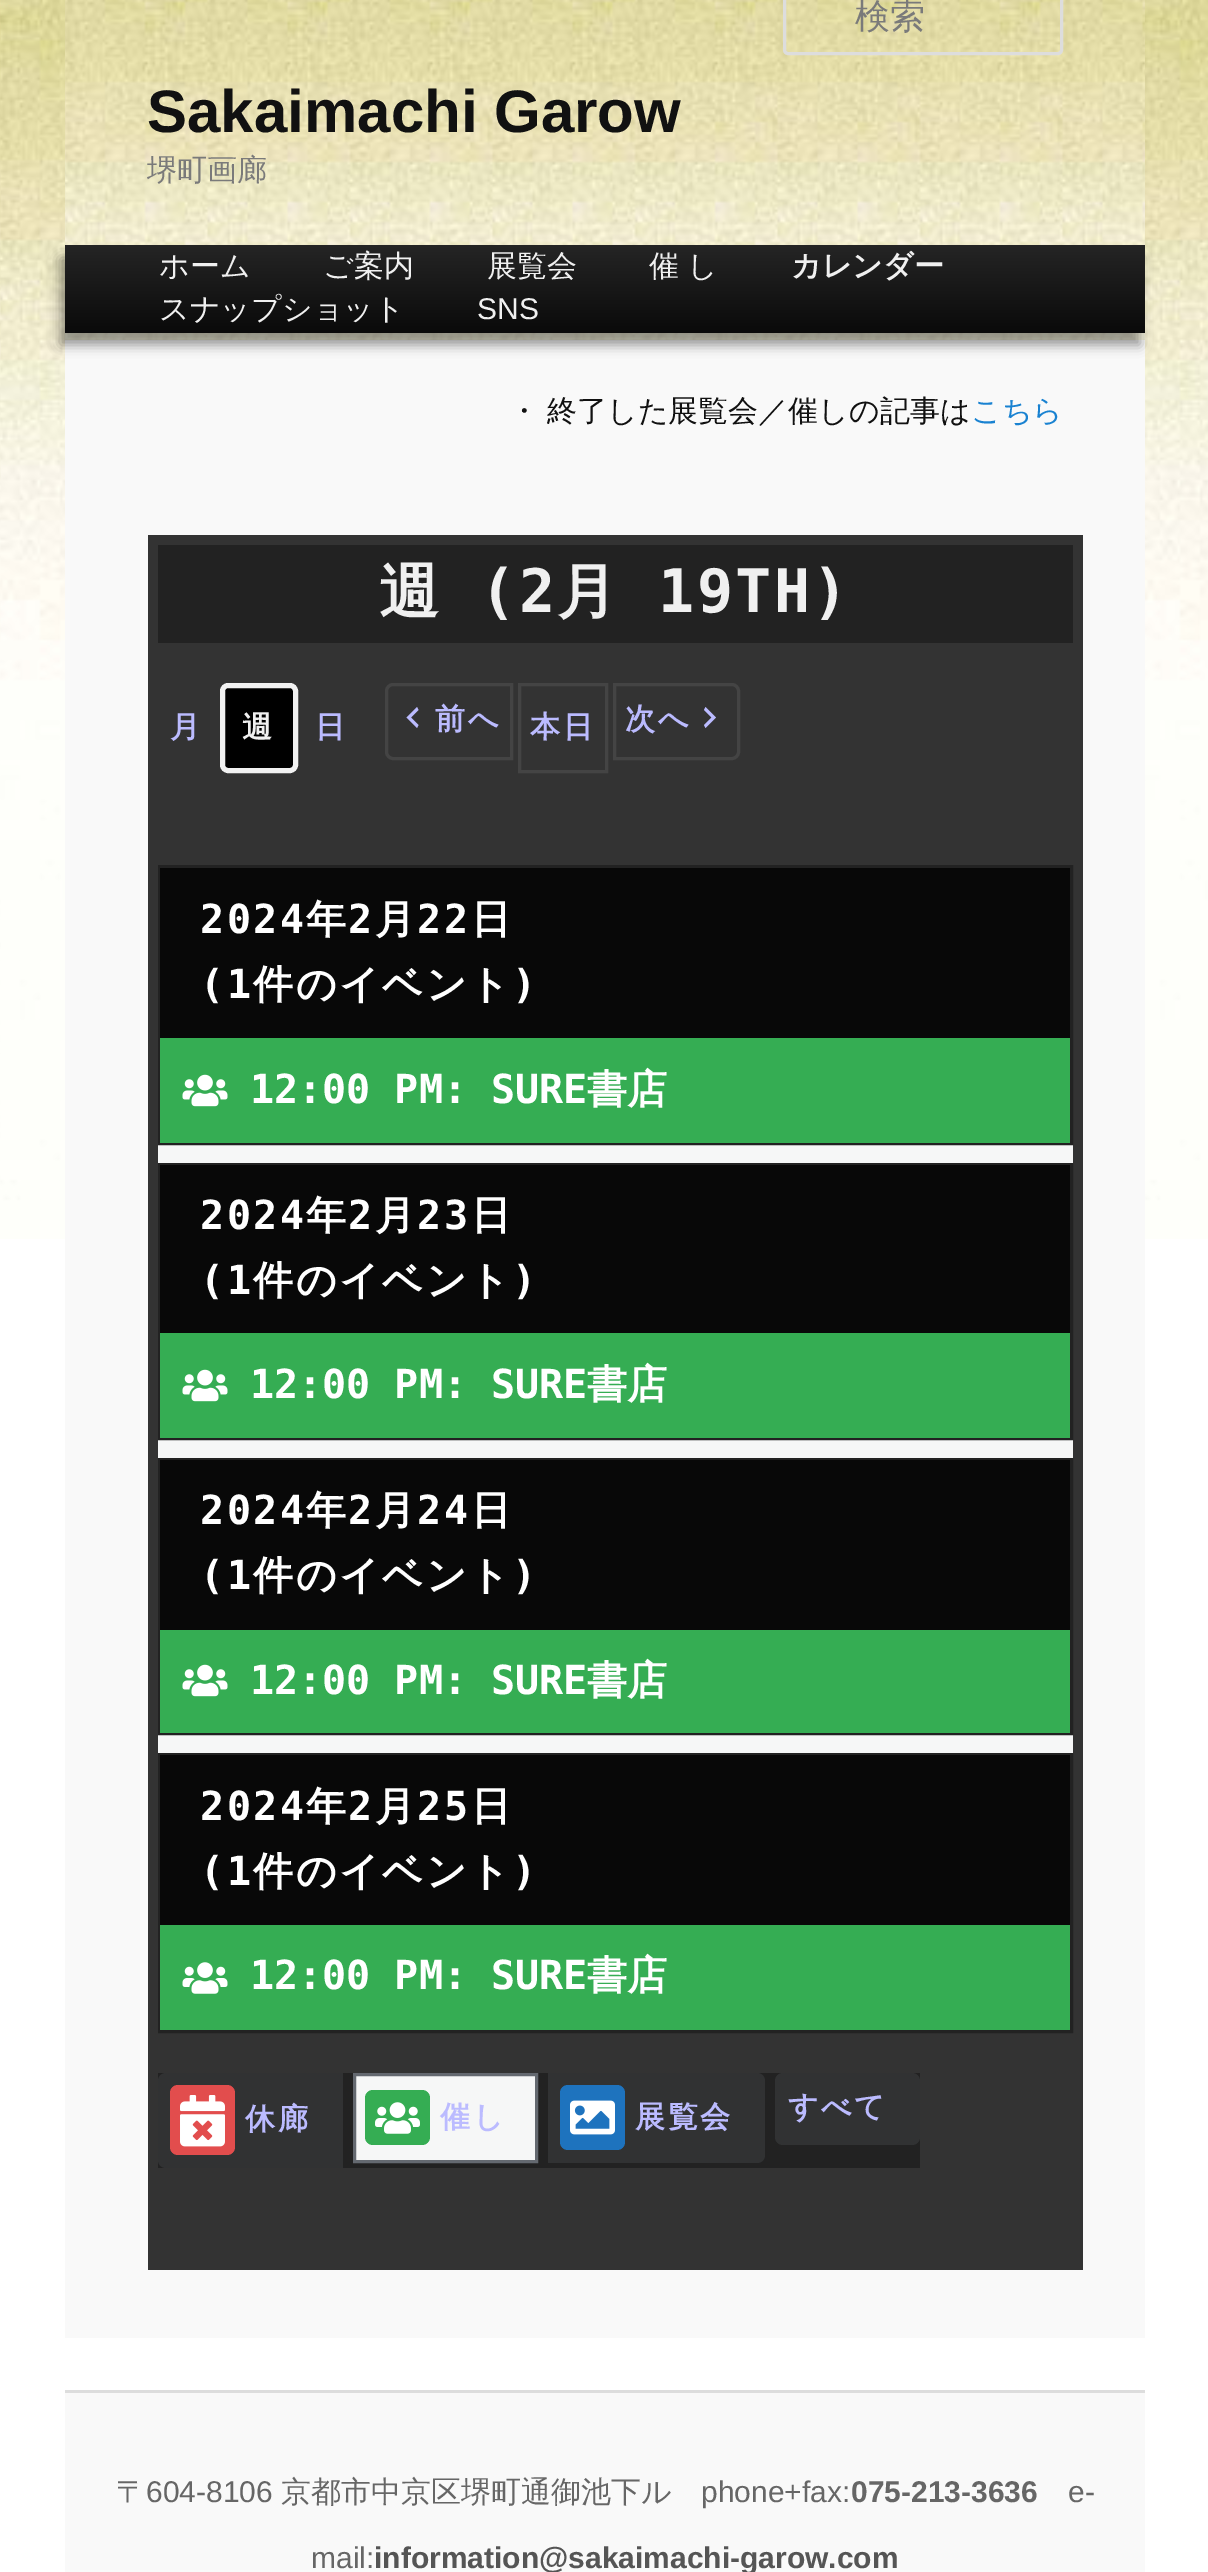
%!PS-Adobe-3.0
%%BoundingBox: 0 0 1208 2572
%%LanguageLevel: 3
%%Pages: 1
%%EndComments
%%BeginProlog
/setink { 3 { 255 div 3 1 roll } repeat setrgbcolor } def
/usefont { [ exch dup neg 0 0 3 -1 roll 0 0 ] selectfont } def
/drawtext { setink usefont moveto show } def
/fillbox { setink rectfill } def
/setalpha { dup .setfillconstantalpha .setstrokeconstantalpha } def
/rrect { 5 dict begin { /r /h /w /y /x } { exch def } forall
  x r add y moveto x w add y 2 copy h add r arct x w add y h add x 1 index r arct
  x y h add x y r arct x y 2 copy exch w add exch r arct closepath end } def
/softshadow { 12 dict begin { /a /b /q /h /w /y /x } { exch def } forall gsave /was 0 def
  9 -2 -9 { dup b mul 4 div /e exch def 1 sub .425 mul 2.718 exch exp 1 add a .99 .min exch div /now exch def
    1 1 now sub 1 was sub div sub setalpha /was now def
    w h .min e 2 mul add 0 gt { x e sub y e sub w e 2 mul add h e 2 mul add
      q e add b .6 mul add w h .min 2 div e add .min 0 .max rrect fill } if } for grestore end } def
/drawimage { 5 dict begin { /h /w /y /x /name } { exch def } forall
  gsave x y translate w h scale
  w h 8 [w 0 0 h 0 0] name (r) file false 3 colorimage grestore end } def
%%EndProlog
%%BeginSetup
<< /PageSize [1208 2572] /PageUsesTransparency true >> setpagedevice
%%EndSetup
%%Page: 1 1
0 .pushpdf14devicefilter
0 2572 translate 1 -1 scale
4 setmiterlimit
0 0 1208 2572 255 255 255 fillbox
(assets/img1.rgb) 0 0 1208 1239 drawimage
(assets/img2.rgb) 65 0 1080 340 drawimage
221 221 221 setink
3 setlinewidth
784.5 -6.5 277 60 3.5 rrect stroke
(検索) 855 28 /WenQuanYiZenHei-Medium 35 122 122 122 drawtext
(Sakaimachi Garow) 147 132 /LiberationSans-Bold 60 17 17 17 drawtext
(堺町画廊) 147 180 /WenQuanYiZenHei-Medium 30 122 122 122 drawtext
65 340 1080 1998 249 249 249 fillbox
0 0 0 setink
60 258 1080 87 0 6 0.4 softshadow
gsave 65 245 moveto 1145 245 lineto 1145 333 lineto 65 333 lineto closepath clip newpath
<< /ShadingType 2 /ColorSpace /DeviceRGB /Coords [605 245 605 333] /Extend [true true] /Function << /FunctionType 2 /Domain [0 1] /C0 [0.145 0.145 0.145] /C1 [0.039 0.039 0.039] /N 1 >> >> shfill grestore
(ホーム) 159 276 /WenQuanYiZenHei-Medium 30 240 240 240 drawtext
(ご案内) 323 276 /WenQuanYiZenHei-Medium 30 240 240 240 drawtext
(展覧会) 487 276 /WenQuanYiZenHei-Medium 30 240 240 240 drawtext
649 276 moveto -1 0 32 (催 し) widthshow
(カレンダー) 791 276 /WenQuanYiZenHei-Bold 30 240 240 240 drawtext
(スナップショット) 159 319 /WenQuanYiZenHei-Medium 30 240 240 240 drawtext
(SNS) 477 319 /LiberationSans-Regular 30 240 240 240 drawtext
/WenQuanYiZenHei-Medium 30 usefont
17 17 17 setink
509 421 moveto -1 0 32 (・ 終了した展覧会／催しの記事は) widthshow
(こちら) 971 421 /WenQuanYiZenHei-Medium 30 25 130 209 drawtext
148 535 935 1735 51 51 51 fillbox
158 545 915 98 34 34 34 fillbox
/WenQuanYiZenHei-Bold 60 usefont
240 240 240 setink
379 612 moveto 2.5 0 (週) ashow
/DejaVuSansMono-Bold 60 usefont
480 612 moveto 2.5 0 (\(2) ashow
/WenQuanYiZenHei-Bold 60 usefont
557 612 moveto 2.5 0 (月) ashow
/DejaVuSansMono-Bold 60 usefont
658 612 moveto 2.5 0 (19TH\)) ashow
/WenQuanYiZenHei-Bold 30 usefont
187 187 255 setink
170 737 moveto 2.5 0 (月) ashow
0 0 0 setink
220 683 78 90 8 rrect fill
242 242 242 setink
5 setlinewidth
222.5 685.5 73 85 5.5 rrect stroke
240 240 240 setink
242 737 moveto 2.5 0 (週) ashow
187 187 255 setink
315 737 moveto 2.5 0 (日) ashow
68 68 68 setink
3 setlinewidth
393 684.5 moveto 511.5 684.5 lineto 511.5 758.5 lineto 393 758.5 lineto 389.5 758.5 386.5 755.5 386.5 752 curveto 386.5 691 lineto 386.5 687.5 389.5 684.5 393 684.5 curveto closepath stroke
187 187 255 setink
418.5 710 moveto 411 717.5 lineto 418.5 725 lineto 417 728 lineto 406.5 717.5 lineto 417 707 lineto closepath fill
435 729 moveto 2.5 0 (前へ) ashow
68 68 68 setink
519.5 684.5 87 87 rectstroke
187 187 255 setink
530 737 moveto 2.5 0 (本日) ashow
68 68 68 setink
614.5 684.5 moveto 732 684.5 lineto 735.5 684.5 738.5 687.5 738.5 691 curveto 738.5 752 lineto 738.5 755.5 735.5 758.5 732 758.5 curveto 614.5 758.5 lineto closepath stroke
187 187 255 setink
625 729 moveto 2.5 0 (次へ) ashow
704 725 moveto 711.5 717.5 lineto 704 710 lineto 705.5 707 lineto 716 717.5 lineto 705.5 728 lineto closepath fill
158 1145 915 608 246 247 247 fillbox
34 34 34 setink
159.5 866.5 912 277 rectstroke
160 868 910 170 8 8 8 fillbox
/DejaVuSansMono-Bold 40 usefont
255 255 255 setink
200 933 moveto 2.5 0 (2024) ashow
/WenQuanYiZenHei-Bold 40 usefont
306 933 moveto 2.5 0 (年) ashow
/DejaVuSansMono-Bold 40 usefont
348 933 moveto 2.5 0 (2) ashow
/WenQuanYiZenHei-Bold 40 usefont
375 933 moveto 2.5 0 (月) ashow
/DejaVuSansMono-Bold 40 usefont
417 933 moveto 2.5 0 (22) ashow
/WenQuanYiZenHei-Bold 40 usefont
471 933 moveto 2.5 0 (日) ashow
/DejaVuSansMono-Bold 40 usefont
200 998 moveto 2.5 0 (\(1) ashow
/WenQuanYiZenHei-Bold 40 usefont
253 998 moveto 2.5 0 (件のイベント) ashow
/DejaVuSansMono-Bold 40 usefont
512 998 moveto 2.5 0 (\)) ashow
160 1038 910 105 53 173 83 fillbox
(assets/img3.rgb) 182 1074 46 33 drawimage
(12:00 PM: SURE) 250 1103 /DejaVuSansMono-Bold 40 255 255 255 drawtext
(書店) 587 1103 /WenQuanYiZenHei-Bold 40 255 255 255 drawtext
34 34 34 setink
159.5 1164.5 912 274 rectstroke
160 1165 910 168 8 8 8 fillbox
/DejaVuSansMono-Bold 40 usefont
255 255 255 setink
200 1229 moveto 2.5 0 (2024) ashow
/WenQuanYiZenHei-Bold 40 usefont
306 1229 moveto 2.5 0 (年) ashow
/DejaVuSansMono-Bold 40 usefont
348 1229 moveto 2.5 0 (2) ashow
/WenQuanYiZenHei-Bold 40 usefont
375 1229 moveto 2.5 0 (月) ashow
/DejaVuSansMono-Bold 40 usefont
417 1229 moveto 2.5 0 (23) ashow
/WenQuanYiZenHei-Bold 40 usefont
471 1229 moveto 2.5 0 (日) ashow
/DejaVuSansMono-Bold 40 usefont
200 1294 moveto 2.5 0 (\(1) ashow
/WenQuanYiZenHei-Bold 40 usefont
253 1294 moveto 2.5 0 (件のイベント) ashow
/DejaVuSansMono-Bold 40 usefont
512 1294 moveto 2.5 0 (\)) ashow
160 1333 910 105 53 173 83 fillbox
(assets/img3.rgb) 182 1369 46 33 drawimage
(12:00 PM: SURE) 250 1398 /DejaVuSansMono-Bold 40 255 255 255 drawtext
(書店) 587 1398 /WenQuanYiZenHei-Bold 40 255 255 255 drawtext
34 34 34 setink
159.5 1459.5 912 274 rectstroke
160 1460 910 170 8 8 8 fillbox
/DejaVuSansMono-Bold 40 usefont
255 255 255 setink
200 1524 moveto 2.5 0 (2024) ashow
/WenQuanYiZenHei-Bold 40 usefont
306 1524 moveto 2.5 0 (年) ashow
/DejaVuSansMono-Bold 40 usefont
348 1524 moveto 2.5 0 (2) ashow
/WenQuanYiZenHei-Bold 40 usefont
375 1524 moveto 2.5 0 (月) ashow
/DejaVuSansMono-Bold 40 usefont
417 1524 moveto 2.5 0 (24) ashow
/WenQuanYiZenHei-Bold 40 usefont
471 1524 moveto 2.5 0 (日) ashow
/DejaVuSansMono-Bold 40 usefont
200 1589 moveto 2.5 0 (\(1) ashow
/WenQuanYiZenHei-Bold 40 usefont
253 1589 moveto 2.5 0 (件のイベント) ashow
/DejaVuSansMono-Bold 40 usefont
512 1589 moveto 2.5 0 (\)) ashow
160 1630 910 103 53 173 83 fillbox
(assets/img3.rgb) 182 1664 46 33 drawimage
(12:00 PM: SURE) 250 1694 /DejaVuSansMono-Bold 40 255 255 255 drawtext
(書店) 587 1694 /WenQuanYiZenHei-Bold 40 255 255 255 drawtext
34 34 34 setink
159.5 1754.5 912 277 rectstroke
160 1755 910 170 8 8 8 fillbox
/DejaVuSansMono-Bold 40 usefont
255 255 255 setink
200 1820 moveto 2.5 0 (2024) ashow
/WenQuanYiZenHei-Bold 40 usefont
306 1820 moveto 2.5 0 (年) ashow
/DejaVuSansMono-Bold 40 usefont
348 1820 moveto 2.5 0 (2) ashow
/WenQuanYiZenHei-Bold 40 usefont
375 1820 moveto 2.5 0 (月) ashow
/DejaVuSansMono-Bold 40 usefont
417 1820 moveto 2.5 0 (25) ashow
/WenQuanYiZenHei-Bold 40 usefont
471 1820 moveto 2.5 0 (日) ashow
/DejaVuSansMono-Bold 40 usefont
200 1885 moveto 2.5 0 (\(1) ashow
/WenQuanYiZenHei-Bold 40 usefont
253 1885 moveto 2.5 0 (件のイベント) ashow
/DejaVuSansMono-Bold 40 usefont
512 1885 moveto 2.5 0 (\)) ashow
160 1925 910 105 53 173 83 fillbox
(assets/img4.rgb) 182 1962 46 32 drawimage
(12:00 PM: SURE) 250 1989 /DejaVuSansMono-Bold 40 255 255 255 drawtext
(書店) 587 1989 /WenQuanYiZenHei-Bold 40 255 255 255 drawtext
158 2073 762 95 34 34 34 fillbox
49 50 51 setink
166 2073 moveto 343 2073 lineto 343 2168 lineto 166 2168 lineto 161.5 2168 158 2164.5 158 2160 curveto 158 2081 lineto 158 2076.5 161.5 2073 166 2073 curveto closepath fill
226 77 77 setink
170 2085 65 70 8 rrect fill
(assets/img5.rgb) 180 2095 45 52 drawimage
/WenQuanYiZenHei-Bold 30 usefont
187 187 255 setink
245 2129 moveto 2.5 0 (休廊) ashow
246 247 247 setink
354.5 2074.5 moveto 536.5 2074.5 lineto 536.5 2161.5 lineto 354.5 2161.5 lineto closepath gsave fill grestore
100 105 112 setink
stroke
53 173 83 setink
365 2090 65 55 8 rrect fill
(assets/img6.rgb) 375 2102 45 32 drawimage
187 187 255 setink
440 2127 moveto 2.5 0 (催し) ashow
49 50 51 setink
548 2073 moveto 757 2073 lineto 761.5 2073 765 2076.5 765 2081 curveto 765 2155 lineto 765 2159.5 761.5 2163 757 2163 curveto 548 2163 lineto closepath fill
30 115 190 setink
560 2085 65 65 8 rrect fill
(assets/img7.rgb) 570 2100 45 35 drawimage
187 187 255 setink
635 2127 moveto 2.5 0 (展覧会) ashow
49 50 51 setink
775 2073 145 72 8 rrect fill
187 187 255 setink
788 2117 moveto 2.5 0 (すべて) ashow
65 2393 1080 179 249 249 249 fillbox
65 2390 1080 3 221 221 221 fillbox
(〒) 116 2502 /WenQuanYiZenHei-Medium 30 102 102 102 drawtext
(604-8106) 146 2502 /LiberationSans-Regular 30 102 102 102 drawtext
(京都市中京区堺町通御池下ル) 281 2502 /WenQuanYiZenHei-Medium 30 102 102 102 drawtext
(phone+fax:) 701 2502 /LiberationSans-Regular 30 102 102 102 drawtext
(075-213-3636) 851 2502 /LiberationSans-Bold 30 102 102 102 drawtext
(e-) 1068 2502 /LiberationSans-Regular 30 102 102 102 drawtext
(mail:) 311 2568 /LiberationSans-Regular 30 102 102 102 drawtext
(information@sakaimachi-garow.com) 374 2568 /LiberationSans-Bold 30 85 85 85 drawtext
.poppdf14devicefilter showpage
%%EOF
